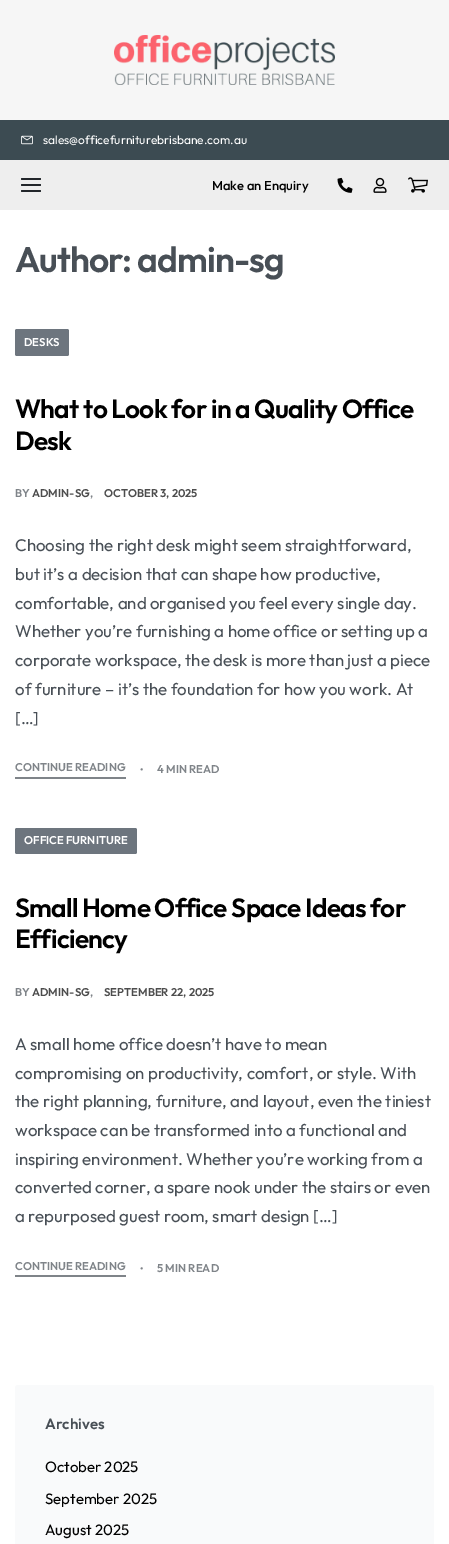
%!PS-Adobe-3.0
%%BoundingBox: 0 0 449 1544
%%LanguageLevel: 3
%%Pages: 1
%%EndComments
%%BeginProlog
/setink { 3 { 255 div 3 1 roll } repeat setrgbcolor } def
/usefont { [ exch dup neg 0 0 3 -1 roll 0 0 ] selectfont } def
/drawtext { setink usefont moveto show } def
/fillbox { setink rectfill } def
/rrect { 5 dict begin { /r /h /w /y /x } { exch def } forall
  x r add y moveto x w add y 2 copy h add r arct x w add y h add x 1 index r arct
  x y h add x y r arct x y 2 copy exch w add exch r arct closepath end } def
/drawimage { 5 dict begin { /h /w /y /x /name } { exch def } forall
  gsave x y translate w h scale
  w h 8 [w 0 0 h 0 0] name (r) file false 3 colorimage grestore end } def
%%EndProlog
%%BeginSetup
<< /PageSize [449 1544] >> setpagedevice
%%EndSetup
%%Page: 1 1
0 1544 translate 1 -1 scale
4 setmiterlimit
0 0 449 1544 255 255 255 fillbox
0 0 449 120 246 246 246 fillbox
(assets/img1.rgb) 114 35 221 50 drawimage
0 120 449 40 60 75 82 fillbox
(assets/img2.rgb) 21 135 12 10 drawimage
(sales@officefurniturebrisbane.com.au) 43 144 /Outfit-Regular 12 255 255 255 drawtext
0 160 449 50 238 238 238 fillbox
34 38 42 setink
21 178 20 2 1 rrect fill
21 184 20 2 1 rrect fill
21 190 20 2 1 rrect fill
(Make an Enquiry) 212 190 /Outfit-Medium 13 0 0 0 drawtext
(assets/img3.rgb) 337 177 16 16 drawimage
(assets/img4.rgb) 373 177 14 16 drawimage
(assets/img5.rgb) 408 177 20 16 drawimage
/Outfit-SemiBold 35.5 usefont
72 79 86 setink
15 272 moveto -1 0 (Author: admin-sg) ashow
109 117 126 setink
15 329 54 27 2 rrect fill
(DESKS) 24 346 /Outfit-SemiBold 11.25 255 255 255 drawtext
/Outfit-SemiBold 26.25 usefont
0 0 0 setink
15 418 moveto -0.7 0 (What to Look for in a Quality Office) ashow
15 450 moveto -0.7 0 (Desk) ashow
(BY) 15 497 /Outfit-SemiBold 11.25 127 132 137 drawtext
(ADMIN-SG) 32 497 /Outfit-SemiBold 11.25 77 77 77 drawtext
(,) 90 497 /Outfit-SemiBold 11.25 127 132 137 drawtext
(OCTOBER 3, 2025) 104 497 /Outfit-SemiBold 11.25 77 77 77 drawtext
(Choosing the right desk might seem straightforward,) 15 551 /Outfit-Regular 16.9 72 79 86 drawtext
(but it’s a decision that can shape how productive,) 15 580 /Outfit-Regular 16.9 72 79 86 drawtext
(comfortable, and organised you feel every single day.) 15 609 /Outfit-Regular 16.9 72 79 86 drawtext
(Whether you’re furnishing a home office or setting up a) 15 637 /Outfit-Regular 16.9 72 79 86 drawtext
(corporate workspace, the desk is more than just a piece) 15 666 /Outfit-Regular 16.9 72 79 86 drawtext
(of furniture – it’s the foundation for how you work. At) 15 695 /Outfit-Regular 16.9 72 79 86 drawtext
([…]) 15 724 /Outfit-Regular 16.9 72 79 86 drawtext
(CONTINUE READING) 15 771 /Outfit-SemiBold 11.25 127 132 137 drawtext
15 777 111 2 127 132 137 fillbox
(•) 140 773 /Outfit-SemiBold 10 127 132 137 drawtext
(4 MIN READ) 157 773 /Outfit-SemiBold 11.25 127 132 137 drawtext
109 117 126 setink
15 828 122 26 2 rrect fill
(OFFICE FURNITURE) 24 844 /Outfit-SemiBold 11.25 255 255 255 drawtext
/Outfit-SemiBold 26.25 usefont
0 0 0 setink
15 917 moveto -0.7 0 (Small Home Office Space Ideas for) ashow
15 948 moveto -0.7 0 (Efficiency) ashow
(BY) 15 996 /Outfit-SemiBold 11.25 127 132 137 drawtext
(ADMIN-SG) 32 996 /Outfit-SemiBold 11.25 77 77 77 drawtext
(,) 90 996 /Outfit-SemiBold 11.25 127 132 137 drawtext
(SEPTEMBER 22, 2025) 104 996 /Outfit-SemiBold 11.25 77 77 77 drawtext
(A small home office doesn’t have to mean) 15 1050 /Outfit-Regular 16.9 72 79 86 drawtext
(compromising on productivity, comfort, or style. With) 15 1079 /Outfit-Regular 16.9 72 79 86 drawtext
(the right planning, furniture, and layout, even the tiniest) 15 1107 /Outfit-Regular 16.9 72 79 86 drawtext
(workspace can be transformed into a functional and) 15 1136 /Outfit-Regular 16.9 72 79 86 drawtext
(inspiring environment. Whether you’re working from a) 15 1165 /Outfit-Regular 16.9 72 79 86 drawtext
(converted corner, a spare nook under the stairs or even) 15 1193 /Outfit-Regular 16.9 72 79 86 drawtext
(a repurposed guest room, smart design […]) 15 1222 /Outfit-Regular 16.9 72 79 86 drawtext
(CONTINUE READING) 15 1270 /Outfit-SemiBold 11.25 127 132 137 drawtext
15 1275 111 2 127 132 137 fillbox
(•) 140 1272 /Outfit-SemiBold 10 127 132 137 drawtext
(5 MIN READ) 157 1272 /Outfit-SemiBold 11.25 127 132 137 drawtext
249 250 251 setink
15 1385 419 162 3 rrect fill
(Archives) 45 1429 /Outfit-SemiBold 15 72 79 86 drawtext
(October 2025) 45 1472 /Outfit-Regular 15 0 0 0 drawtext
(September 2025) 45 1504 /Outfit-Regular 15 0 0 0 drawtext
(August 2025) 45 1535 /Outfit-Regular 15 0 0 0 drawtext
showpage
%%EOF
